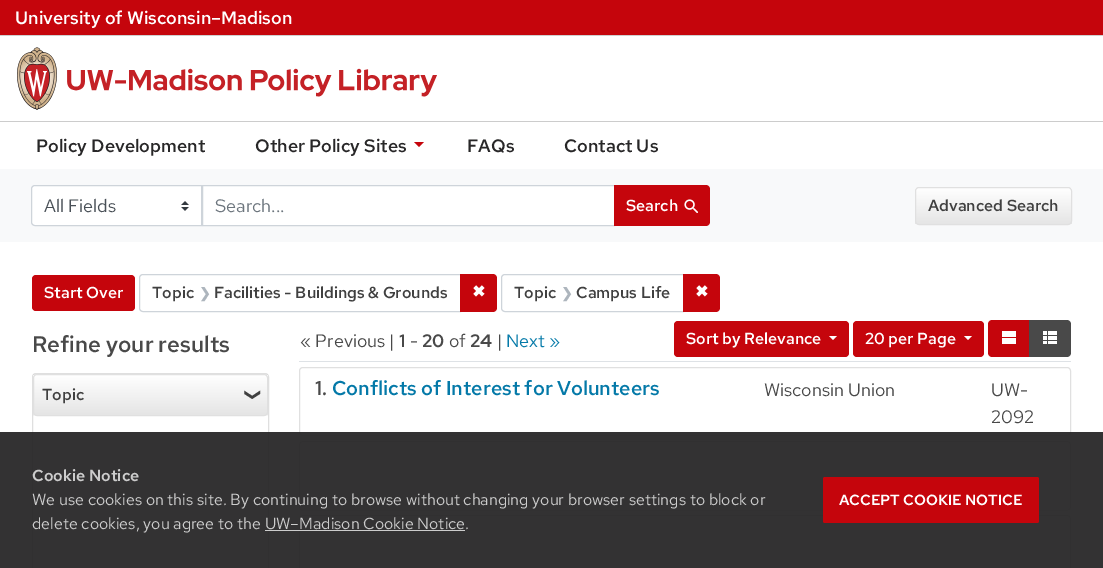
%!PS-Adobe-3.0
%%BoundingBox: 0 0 1103 568
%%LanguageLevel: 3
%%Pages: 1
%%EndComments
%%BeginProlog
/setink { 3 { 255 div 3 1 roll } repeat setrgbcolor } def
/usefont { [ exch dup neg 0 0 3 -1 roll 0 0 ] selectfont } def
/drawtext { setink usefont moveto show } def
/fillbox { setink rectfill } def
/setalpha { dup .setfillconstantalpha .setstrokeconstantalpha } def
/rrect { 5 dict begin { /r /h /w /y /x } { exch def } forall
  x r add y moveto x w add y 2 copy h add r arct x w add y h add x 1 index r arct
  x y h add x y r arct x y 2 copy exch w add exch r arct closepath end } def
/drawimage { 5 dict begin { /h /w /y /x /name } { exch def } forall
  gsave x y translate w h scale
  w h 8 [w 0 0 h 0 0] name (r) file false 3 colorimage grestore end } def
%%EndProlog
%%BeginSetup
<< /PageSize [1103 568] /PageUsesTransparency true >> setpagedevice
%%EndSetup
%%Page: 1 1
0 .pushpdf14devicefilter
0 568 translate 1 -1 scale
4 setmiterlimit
0 0 1103 568 255 255 255 fillbox
0 0 1103 35 197 5 12 fillbox
0 35 1103 1 207 207 207 fillbox
(University of Wisconsin–Madison) 15 24 /RedHatText-SemiBold 18 255 255 255 drawtext
0 121 1103 1 204 204 204 fillbox
(assets/img1.rgb) 17 47 420 63 drawimage
(Policy Development) 36 152 /RedHatText-SemiBold 18 40 39 40 drawtext
(Other Policy Sites) 255 152 /RedHatText-SemiBold 18 40 39 40 drawtext
197 5 12 setink
414 142 moveto 419 147 lineto 424 142 lineto closepath fill
(FAQs) 467 152 /RedHatText-SemiBold 18 40 39 40 drawtext
(Contact Us) 564 152 /RedHatText-SemiBold 18 40 39 40 drawtext
0 169 1103 73 248 249 250 fillbox
255 255 255 setink
35 185 moveto 202 185 lineto 202 226 lineto 35 226 lineto 33 226 31 224 31 222 curveto 31 189 lineto 31 187 33 185 35 185 curveto closepath fill
(assets/img2.rgb) 181 201 8 10 drawimage
206 212 218 setink
35 185.5 moveto 201.5 185.5 lineto 201.5 225.5 lineto 35 225.5 lineto 33 225.5 31.5 224 31.5 222 curveto 31.5 189 lineto 31.5 187 33 185.5 35 185.5 curveto closepath stroke
(All Fields) 44 212 /RedHatText-Regular 18 73 80 87 drawtext
255 255 255 setink
202.5 185.5 moveto 614.5 185.5 lineto 614.5 225.5 lineto 202.5 225.5 lineto closepath gsave fill grestore
206 212 218 setink
stroke
(Search...) 215 212 /RedHatText-Regular 18 108 117 125 drawtext
197 5 12 setink
614 185 moveto 706 185 lineto 708 185 710 187 710 189 curveto 710 222 lineto 710 224 708 226 706 226 curveto 614 226 lineto closepath fill
(Search) 626 211 /RedHatText-SemiBold 16 255 255 255 drawtext
(assets/img3.rgb) 684 199 14 14 drawimage
gsave
915 187 157 38 4 rrect clip newpath
gsave 915 188 moveto 1072 188 lineto 1072 224 lineto 915 224 lineto closepath clip newpath
<< /ShadingType 2 /ColorSpace /DeviceRGB /Coords [994 188 994 224] /Extend [true true] /Function << /FunctionType 2 /Domain [0 1] /C0 [1 1 1] /C1 [0.898 0.898 0.898] /N 1 >> >> shfill grestore
grestore
224 224 224 setink
915.5 187.5 156 37 3.5 rrect stroke
(Advanced Search) 928 211 /RedHatText-SemiBold 16 64 64 64 drawtext
197 5 12 setink
32 275 103 36 4 rrect fill
(Start Over) 44 298 /RedHatText-SemiBold 16 255 255 255 drawtext
206 212 218 setink
143 274.5 moveto 460.5 274.5 lineto 460.5 311.5 lineto 143 311.5 lineto 141 311.5 139.5 310 139.5 308 curveto 139.5 278 lineto 139.5 276 141 274.5 143 274.5 curveto closepath stroke
(Topic) 152 298 /RedHatText-SemiBold 16 64 64 64 drawtext
(❯) 199 298 /DejaVuSans-Bold 14 173 181 189 drawtext
(Facilities - Buildings & Grounds) 214 298 /RedHatText-SemiBold 16 64 64 64 drawtext
197 5 12 setink
460 274 moveto 493 274 lineto 495 274 497 276 497 278 curveto 497 308 lineto 497 310 495 312 493 312 curveto 460 312 lineto closepath fill
(✖) 472 297 /DejaVuSans-Bold 16 255 255 255 drawtext
206 212 218 setink
505 274.5 moveto 683.5 274.5 lineto 683.5 311.5 lineto 505 311.5 lineto 503 311.5 501.5 310 501.5 308 curveto 501.5 278 lineto 501.5 276 503 274.5 505 274.5 curveto closepath stroke
(Topic) 514 298 /RedHatText-SemiBold 16 64 64 64 drawtext
(❯) 561 298 /DejaVuSans-Bold 14 173 181 189 drawtext
(Campus Life) 576 298 /RedHatText-SemiBold 16 64 64 64 drawtext
197 5 12 setink
683 274 moveto 716 274 lineto 718 274 720 276 720 278 curveto 720 308 lineto 720 310 718 312 716 312 curveto 683 312 lineto closepath fill
(✖) 695 297 /DejaVuSans-Bold 16 255 255 255 drawtext
(Refine your results) 32 352 /RedHatText-Medium 22.5 73 73 73 drawtext
223 223 223 setink
32.5 373.5 236 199 3.5 rrect stroke
0.03 setalpha
33 374 235 42 0 0 0 fillbox
gsave
33 374 235 42 4 rrect clip newpath
1 setalpha
gsave 33 375 moveto 268 375 lineto 268 415 lineto 33 415 lineto closepath clip newpath
<< /ShadingType 2 /ColorSpace /DeviceRGB /Coords [151 375 151 415] /Extend [true true] /Function << /FunctionType 2 /Domain [0 1] /C0 [1 1 1] /C1 [0.898 0.898 0.898] /N 1 >> >> shfill grestore
grestore
1 setalpha
224 224 224 setink
33.5 374.5 234 41 3.5 rrect stroke
(Topic) 42 400 /RedHatText-Medium 16 64 64 64 drawtext
/DejaVuSans-Regular 16 usefont
gsave 248 388 translate 90 rotate 0 0 moveto (❯) show grestore
299 361 772 1 222 226 230 fillbox
(« Previous |) 300 347 /RedHatText-Regular 18 73 73 73 drawtext
(1) 399 347 /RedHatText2-SemiBold 18 73 73 73 drawtext
(-) 410 347 /RedHatText-Regular 18 73 73 73 drawtext
(20) 422 347 /RedHatText2-SemiBold 18 73 73 73 drawtext
(of) 449 347 /RedHatText-Regular 18 73 73 73 drawtext
(24) 470 347 /RedHatText2-SemiBold 18 73 73 73 drawtext
(|) 497 347 /RedHatText-Regular 18 73 73 73 drawtext
(Next ») 506 347 /RedHatText-Regular 18 4 121 168 drawtext
197 5 12 setink
674 321 175 36 4 rrect fill
(Sort by Relevance) 686 344 /RedHatText-SemiBold 16 255 255 255 drawtext
829 336 moveto 837 336 lineto 833 340 lineto closepath fill
197 5 12 setink
853 321 131 36 4 rrect fill
(20 per Page) 865 344 /RedHatText-SemiBold 16 255 255 255 drawtext
964 336 moveto 972 336 lineto 968 340 lineto closepath fill
197 5 12 setink
992 320 moveto 1030 320 lineto 1030 357 lineto 992 357 lineto 990 357 988 355 988 353 curveto 988 324 lineto 988 322 990 320 992 320 curveto closepath fill
(assets/img4.rgb) 1002 331 14 13 drawimage
73 73 73 setink
1029 320 moveto 1067 320 lineto 1069 320 1071 322 1071 324 curveto 1071 353 lineto 1071 355 1069 357 1067 357 curveto 1029 357 lineto closepath fill
(assets/img5.rgb) 1043 331 14 13 drawimage
222 226 230 setink
[1 1] 0 setdash
1069.5 434.5 moveto 1067 435.5 lineto 303 435.5 lineto 300.5 434.5 lineto stroke
224 224 224 setink
[] 0 setdash
300.5 434.5 moveto 300 434 299.5 433 299.5 432 curveto 299.5 371 lineto 299.5 370 300 369 300.5 368.5 curveto 301 368 302 367.5 303 367.5 curveto 1067 367.5 lineto 1068 367.5 1069 368 1069.5 368.5 curveto 1070 369 1070.5 370 1070.5 371 curveto 1070.5 432 lineto 1070.5 433 1070 434 1069.5 434.5 curveto stroke
(1.) 315 395 /RedHatText-Medium 20 73 73 73 drawtext
(Conflicts of Interest for Volunteers) 332 395 /RedHatText-Medium 20 4 121 168 drawtext
(Wisconsin Union) 764 396 /RedHatText-Regular 18 73 73 73 drawtext
(UW-) 991 396 /RedHatText-Regular 18 73 73 73 drawtext
(2092) 991 423 /RedHatText-Regular 18 73 73 73 drawtext
222 226 230 setink
[1 1] 0 setdash
1069.5 509.5 moveto 1067 510.5 lineto 303 510.5 lineto 300.5 509.5 lineto stroke
224 224 224 setink
[] 0 setdash
300.5 509.5 moveto 300 509 299.5 508 299.5 507 curveto 299.5 445 lineto 299.5 444 300 443 300.5 442.5 curveto 301 442 302 441.5 303 441.5 curveto 1067 441.5 lineto 1068 441.5 1069 442 1069.5 442.5 curveto 1070 443 1070.5 444 1070.5 445 curveto 1070.5 507 lineto 1070.5 508 1070 509 1069.5 509.5 curveto stroke
300.5 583.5 moveto 300 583 299.5 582 299.5 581 curveto 299.5 519 lineto 299.5 518 300 517 300.5 516.5 curveto 301 516 302 515.5 303 515.5 curveto 1067 515.5 lineto 1068 515.5 1069 516 1069.5 516.5 curveto 1070 517 1070.5 518 1070.5 519 curveto 1070.5 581 lineto 1070.5 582 1070 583 1069.5 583.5 curveto stroke
0.95 setalpha
0 432 1103 136 40 39 40 fillbox
1 setalpha
(Cookie Notice) 32 481 /RedHatText2-SemiBold 16 204 204 204 drawtext
(We use cookies on this site. By continuing to browse without changing your browser settings to block or) 32 505 /RedHatText-Regular 16 204 204 204 drawtext
(delete cookies, you agree to the UW–Madison Cookie Notice.) 32 529 /RedHatText-Regular 16 204 204 204 drawtext
265 530 200 1 204 204 204 fillbox
197 5 12 setink
823 477 216 46 2 rrect fill
(ACCEPT COOKIE NOTICE) 839 505 /RedHatText2-SemiBold 14.75 255 255 255 drawtext
.poppdf14devicefilter showpage
%%EOF
